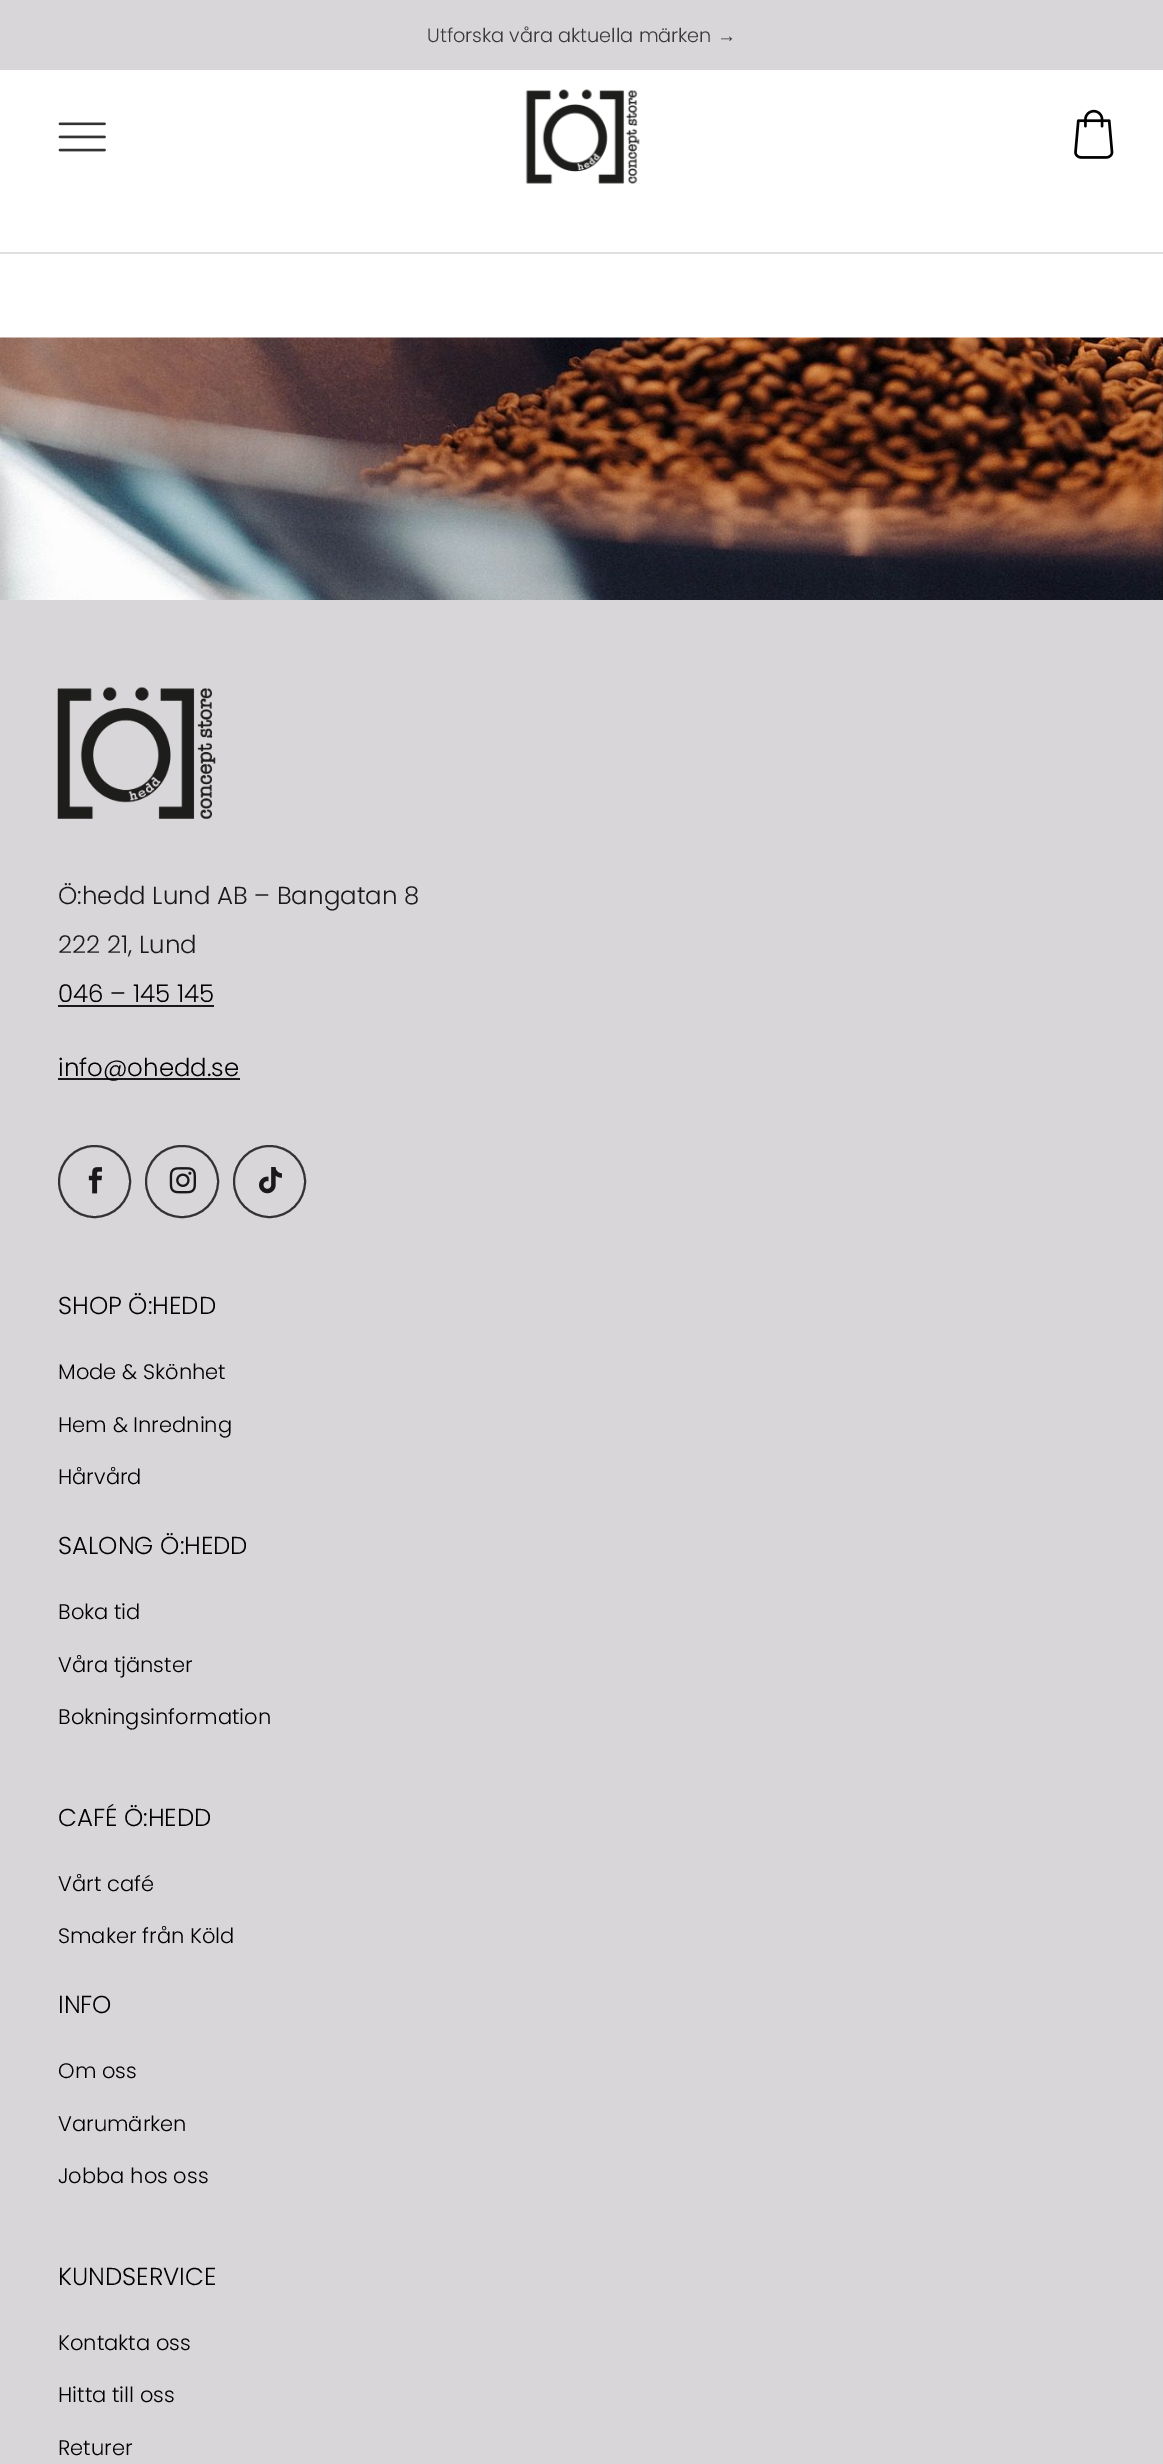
%!PS-Adobe-3.0
%%BoundingBox: 0 0 1163 2464
%%LanguageLevel: 3
%%Pages: 1
%%EndComments
%%BeginProlog
/setink { 3 { 255 div 3 1 roll } repeat setrgbcolor } def
/usefont { [ exch dup neg 0 0 3 -1 roll 0 0 ] selectfont } def
/drawtext { setink usefont moveto show } def
/fillbox { setink rectfill } def
/disc { newpath 0 360 arc closepath } def
/rrect { 5 dict begin { /r /h /w /y /x } { exch def } forall
  x r add y moveto x w add y 2 copy h add r arct x w add y h add x 1 index r arct
  x y h add x y r arct x y 2 copy exch w add exch r arct closepath end } def
/drawimage { 5 dict begin { /h /w /y /x /name } { exch def } forall
  gsave x y translate w h scale
  w h 8 [w 0 0 h 0 0] name (r) file false 3 colorimage grestore end } def
%%EndProlog
%%BeginSetup
<< /PageSize [1163 2464] >> setpagedevice
%%EndSetup
%%Page: 1 1
0 2464 translate 1 -1 scale
4 setmiterlimit
0 0 1163 2464 255 255 255 fillbox
0 0 1163 70 217 214 217 fillbox
(Utforska våra aktuella märken) 427 42 /Poppins-Light 19.25 58 58 58 drawtext
(→) 717 42 /LiberationSans-Regular 19.25 58 58 58 drawtext
0 252 1163 2 224 224 224 fillbox
(assets/img1.rgb) 58 122 48 30 drawimage
(assets/img2.rgb) 525 89 115 95 drawimage
(assets/img3.rgb) 1074 109 40 50 drawimage
(assets/img4.rgb) 0 337 1163 263 drawimage
0 600 1163 1864 217 214 217 fillbox
(assets/img5.rgb) 57 687 159 132 drawimage
(Ö:hedd Lund AB – Bangatan 8) 58 904 /Poppins-Light 24.5 25 25 25 drawtext
(222 21, Lund) 58 953 /Poppins-Light 24.5 25 25 25 drawtext
(046 – 145 145) 58 1002 /Poppins-Light 24.5 0 0 0 drawtext
58 1005 156 2 25 25 25 fillbox
58 1078 182 2 25 25 25 fillbox
(info@ohedd.se) 58 1076 /Poppins-Light 24.5 0 0 0 drawtext
51 51 51 setink
2 setlinewidth
94.5 1181.5 35.5 disc stroke
(assets/img6.rgb) 88 1167 14 27 drawimage
146 1146 72 71 35.5 rrect stroke
(assets/img7.rgb) 169 1167 27 27 drawimage
269.5 1181.5 35.5 disc stroke
(assets/img8.rgb) 259 1167 23 27 drawimage
(SHOP Ö:HEDD) 58 1314 /Poppins-Light 24.5 0 0 0 drawtext
(Mode & Skönhet) 58 1379 /Poppins-Light 21 0 0 0 drawtext
(Hem & Inredning) 58 1432 /Poppins-Light 21 0 0 0 drawtext
(Hårvård) 58 1484 /Poppins-Light 21 0 0 0 drawtext
(SALONG Ö:HEDD) 58 1554 /Poppins-Light 24.5 0 0 0 drawtext
(Boka tid) 58 1619 /Poppins-Light 21 0 0 0 drawtext
(Våra tjänster) 58 1672 /Poppins-Light 21 0 0 0 drawtext
(Bokningsinformation) 58 1724 /Poppins-Light 21 0 0 0 drawtext
(CAFÉ Ö:HEDD) 58 1826 /Poppins-Light 24.5 0 0 0 drawtext
(Vårt café) 58 1891 /Poppins-Light 21 0 0 0 drawtext
(Smaker från Köld) 58 1943 /Poppins-Light 21 0 0 0 drawtext
(INFO) 58 2013 /Poppins-Light 24.5 0 0 0 drawtext
(Om oss) 58 2078 /Poppins-Light 21 0 0 0 drawtext
(Varumärken) 58 2131 /Poppins-Light 21 0 0 0 drawtext
(Jobba hos oss) 58 2183 /Poppins-Light 21 0 0 0 drawtext
(KUNDSERVICE) 58 2285 /Poppins-Light 24.5 0 0 0 drawtext
(Kontakta oss) 58 2350 /Poppins-Light 21 0 0 0 drawtext
(Hitta till oss) 58 2402 /Poppins-Light 21 0 0 0 drawtext
(Returer) 58 2455 /Poppins-Light 21 0 0 0 drawtext
showpage
%%EOF
